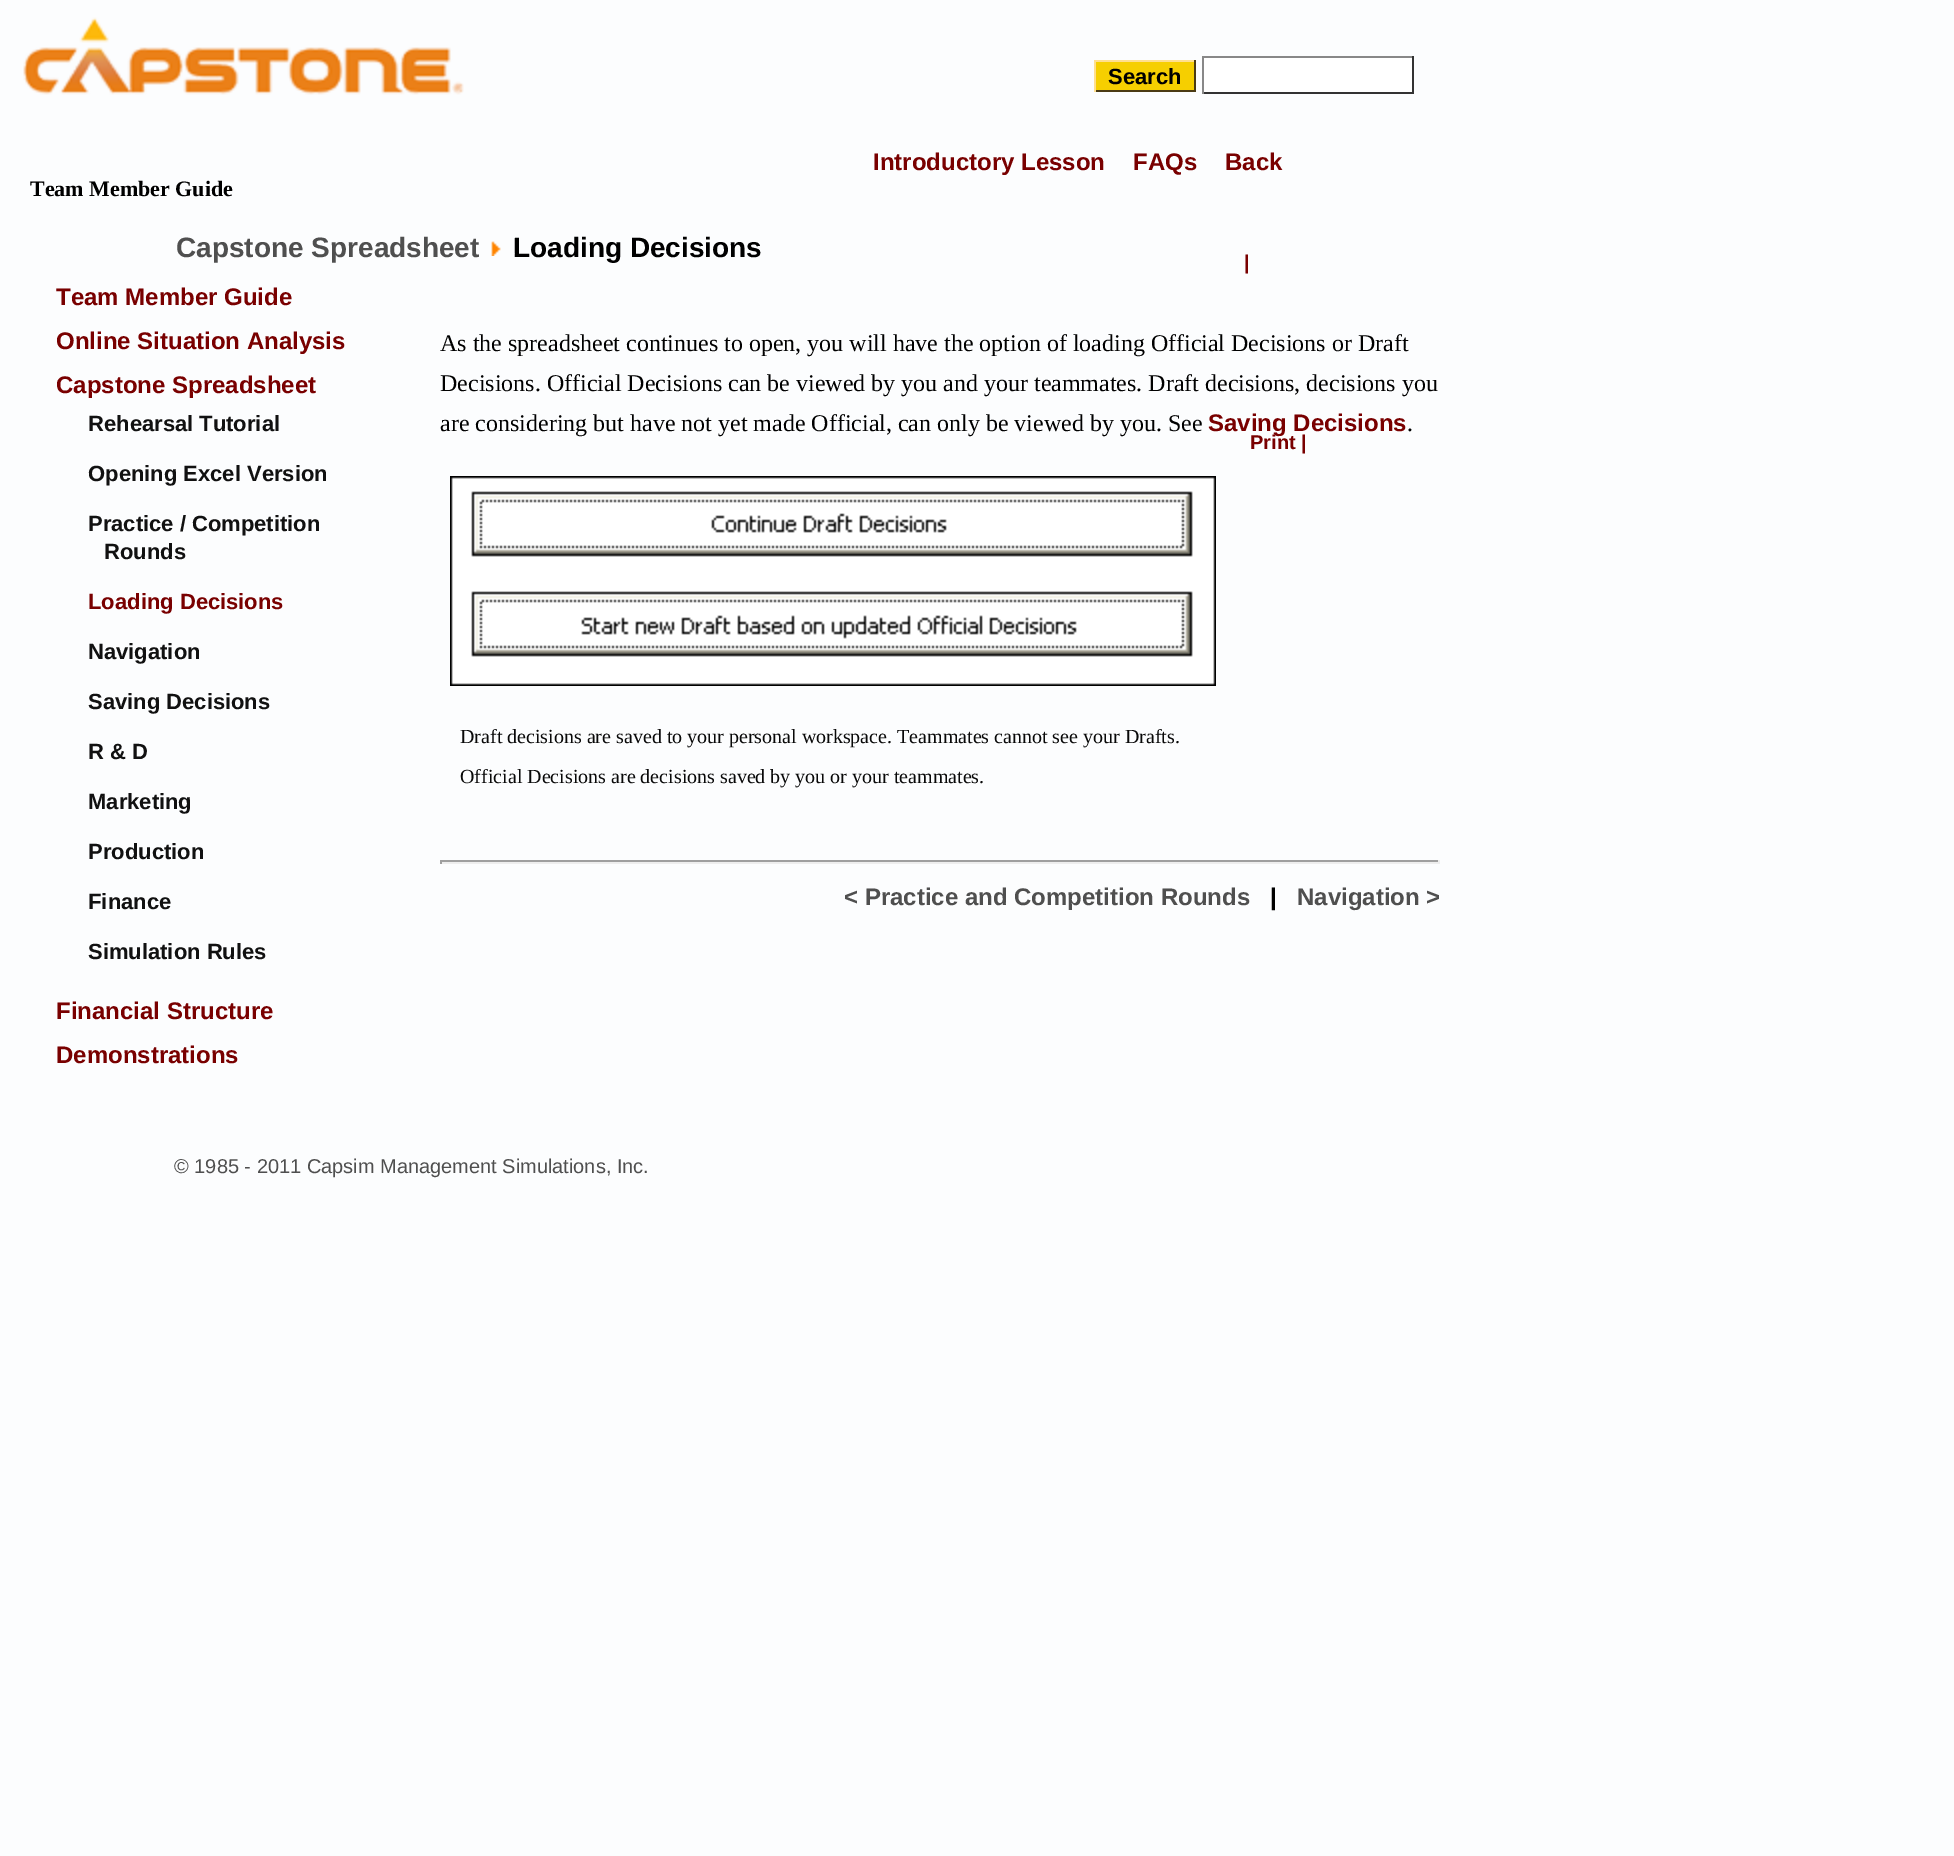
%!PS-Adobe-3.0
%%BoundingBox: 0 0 1954 1856
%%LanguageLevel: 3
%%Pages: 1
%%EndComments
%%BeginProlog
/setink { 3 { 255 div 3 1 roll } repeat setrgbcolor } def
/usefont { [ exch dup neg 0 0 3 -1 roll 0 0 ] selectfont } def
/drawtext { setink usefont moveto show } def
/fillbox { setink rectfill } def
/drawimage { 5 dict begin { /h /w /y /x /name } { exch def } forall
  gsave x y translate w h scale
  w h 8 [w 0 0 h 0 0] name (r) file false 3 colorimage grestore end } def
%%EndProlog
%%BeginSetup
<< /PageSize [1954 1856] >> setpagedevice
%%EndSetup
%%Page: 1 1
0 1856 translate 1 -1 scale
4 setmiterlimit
0 0 1954 1856 252 253 254 fillbox
(assets/img1.rgb) 23 17 441 78 drawimage
1096 62 98 28 246 207 0 fillbox
1094 60 102 2 255 223 142 fillbox
1194 60 2 32 75 59 20 fillbox
1094 90 102 2 75 59 20 fillbox
1094 60 2 32 255 223 142 fillbox
(Search) 1108 84 /LiberationSans-Bold 22 0 0 0 drawtext
1204 58 208 34 255 255 255 fillbox
1202 56 212 2 136 136 136 fillbox
1412 56 2 38 51 51 51 fillbox
1202 92 212 2 51 51 51 fillbox
1202 56 2 38 136 136 136 fillbox
(Introductory Lesson) 873 170 /LiberationSans-Bold 24 121 0 0 drawtext
(FAQs) 1133 170 /LiberationSans-Bold 24 121 0 0 drawtext
(Back) 1225 170 /LiberationSans-Bold 24 121 0 0 drawtext
(Team Member Guide) 30 196 /LiberationSerif-Bold 22 0 0 0 drawtext
(Capstone Spreadsheet) 176 257 /LiberationSans-Bold 28 79 79 79 drawtext
(assets/img2.rgb) 491 241 10 15 drawimage
(Loading Decisions) 513 257 /LiberationSans-Bold 28 0 0 0 drawtext
(|) 1244 269 /LiberationSans-Bold 20 121 0 0 drawtext
(Print |) 1250 449 /LiberationSans-Bold 20 121 0 0 drawtext
(As the spreadsheet continues to open, you will have the option of loading Official Decisions or Draft) 440 351 /LiberationSerif-Regular 24 0 0 0 drawtext
(Decisions. Official Decisions can be viewed by you and your teammates. Draft decisions, decisions you) 440 391 /LiberationSerif-Regular 24 0 0 0 drawtext
(are considering but have not yet made Official, can only be viewed by you. See) 440 431 /LiberationSerif-Regular 24 0 0 0 drawtext
(Saving Decisions) 1208 431 /LiberationSans-Bold 24 121 0 0 drawtext
(.) 1407 431 /LiberationSerif-Regular 24 0 0 0 drawtext
(assets/img3.rgb) 450 476 766 210 drawimage
(Draft decisions are saved to your personal workspace. Teammates cannot see your Drafts.) 460 743 /LiberationSerif-Regular 20 9 9 9 drawtext
(Official Decisions are decisions saved by you or your teammates.) 460 783 /LiberationSerif-Regular 20 9 9 9 drawtext
440 860 1000 2 159 159 159 fillbox
1438 860 2 4 238 238 238 fillbox
440 862 1000 2 238 238 238 fillbox
440 860 2 4 159 159 159 fillbox
(< Practice and Competition Rounds) 844 905 /LiberationSans-Bold 24 79 79 79 drawtext
(|) 1270 905 /LiberationSans-Bold 24 0 0 0 drawtext
(Navigation >) 1297 905 /LiberationSans-Bold 24 79 79 79 drawtext
(© 1985 - 2011 Capsim Management Simulations, Inc.) 174 1173 /LiberationSans-Regular 20 79 79 79 drawtext
(Team Member Guide) 56 305 /LiberationSans-Bold 24 121 0 0 drawtext
(Online Situation Analysis) 56 349 /LiberationSans-Bold 24 121 0 0 drawtext
(Capstone Spreadsheet) 56 393 /LiberationSans-Bold 24 121 0 0 drawtext
(Rehearsal Tutorial) 88 431 /LiberationSans-Bold 22 17 17 17 drawtext
(Opening Excel Version) 88 481 /LiberationSans-Bold 22 17 17 17 drawtext
(Practice / Competition) 88 531 /LiberationSans-Bold 22 17 17 17 drawtext
(Rounds) 104 559 /LiberationSans-Bold 22 17 17 17 drawtext
(Loading Decisions) 88 609 /LiberationSans-Bold 22 121 0 0 drawtext
(Navigation) 88 659 /LiberationSans-Bold 22 17 17 17 drawtext
(Saving Decisions) 88 709 /LiberationSans-Bold 22 17 17 17 drawtext
(R & D) 88 759 /LiberationSans-Bold 22 17 17 17 drawtext
(Marketing) 88 809 /LiberationSans-Bold 22 17 17 17 drawtext
(Production) 88 859 /LiberationSans-Bold 22 17 17 17 drawtext
(Finance) 88 909 /LiberationSans-Bold 22 17 17 17 drawtext
(Simulation Rules) 88 959 /LiberationSans-Bold 22 17 17 17 drawtext
(Financial Structure) 56 1019 /LiberationSans-Bold 24 121 0 0 drawtext
(Demonstrations) 56 1063 /LiberationSans-Bold 24 121 0 0 drawtext
showpage
%%EOF
